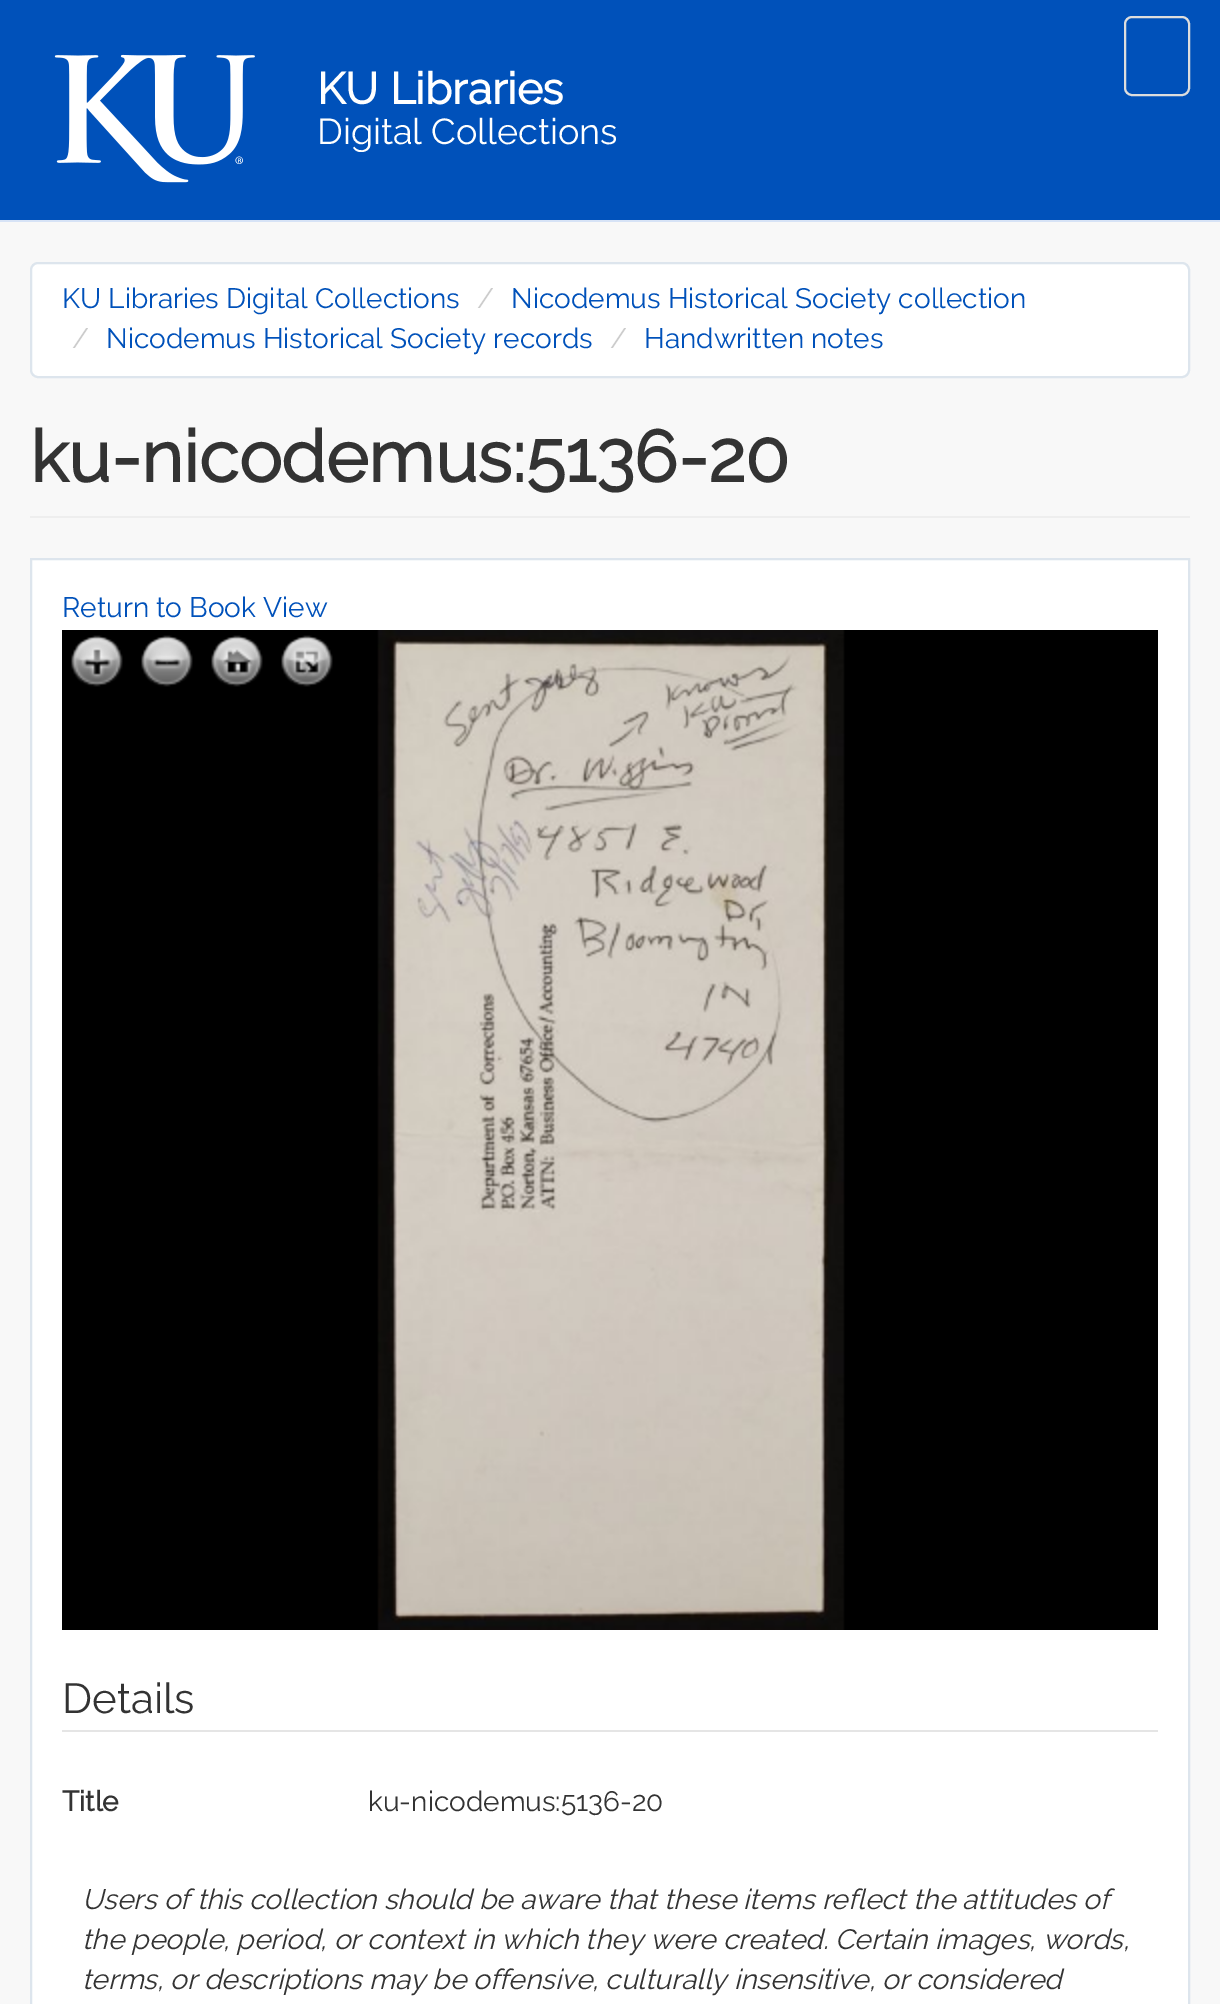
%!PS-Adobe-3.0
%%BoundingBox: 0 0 1220 2004
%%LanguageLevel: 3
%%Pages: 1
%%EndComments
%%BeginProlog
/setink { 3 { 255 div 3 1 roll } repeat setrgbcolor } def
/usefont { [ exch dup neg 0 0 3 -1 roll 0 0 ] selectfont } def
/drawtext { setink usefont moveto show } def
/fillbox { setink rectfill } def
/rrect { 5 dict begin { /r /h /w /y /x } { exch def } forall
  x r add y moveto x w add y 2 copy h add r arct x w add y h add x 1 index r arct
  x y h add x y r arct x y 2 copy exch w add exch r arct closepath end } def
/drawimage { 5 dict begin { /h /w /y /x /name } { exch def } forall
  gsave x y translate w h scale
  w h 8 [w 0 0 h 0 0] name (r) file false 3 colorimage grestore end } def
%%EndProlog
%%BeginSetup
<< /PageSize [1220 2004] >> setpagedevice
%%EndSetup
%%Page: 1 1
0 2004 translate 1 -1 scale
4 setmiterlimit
0 0 1220 2004 248 248 248 fillbox
0 0 1220 220 0 81 186 fillbox
0 220 1220 2 215 227 246 fillbox
(assets/img1.rgb) 54 54 201 129 drawimage
(KU Libraries) 317 104 /Raleway-Bold 44 255 255 255 drawtext
(Digital Collections) 317 144 /Raleway-Thin 36 255 255 255 drawtext
221 221 221 setink
2 setlinewidth
1125 17 64 78 7 rrect stroke
255 255 255 setink
31 263 1158 114 7 rrect gsave fill grestore
221 229 237 setink
stroke
(KU Libraries Digital Collections) 62 308 /Raleway-Thin 28 0 81 186 drawtext
(/) 477 308 /Raleway-Thin 28 204 204 204 drawtext
(Nicodemus Historical Society collection) 511 308 /Raleway-Thin 28 0 81 186 drawtext
(/) 72 348 /Raleway-Thin 28 204 204 204 drawtext
(Nicodemus Historical Society records) 106 348 /Raleway-Thin 28 0 81 186 drawtext
(/) 610 348 /Raleway-Thin 28 204 204 204 drawtext
(Handwritten notes) 644 348 /Raleway-Thin 28 0 81 186 drawtext
30 516 1160 2 238 238 238 fillbox
(ku-nicodemus:5136-20) 30 482 /Raleway-Bold 72 51 51 51 drawtext
255 255 255 setink
31 559 moveto 1189 559 lineto 1189 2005 lineto 31 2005 lineto closepath gsave fill grestore
221 229 237 setink
stroke
(Return to Book View) 62 617 /Raleway-Thin 28 0 81 186 drawtext
62 630 1096 1000 0 0 0 fillbox
(assets/img2.rgb) 377 630 468 1000 drawimage
(assets/img3.rgb) 71 635 52 52 drawimage
(assets/img4.rgb) 71 635 52 52 drawimage
(assets/img5.rgb) 141 635 52 52 drawimage
(assets/img6.rgb) 141 635 52 52 drawimage
(assets/img7.rgb) 211 635 52 52 drawimage
(assets/img8.rgb) 211 635 52 52 drawimage
(assets/img9.rgb) 281 635 52 52 drawimage
(assets/img10.rgb) 281 635 52 52 drawimage
62 1730 1096 2 229 229 229 fillbox
(Details) 62 1713 /Raleway-Thin 42 51 51 51 drawtext
(Title) 62 1811 /Raleway-Bold 28 51 51 51 drawtext
(ku-nicodemus:5136-20) 368 1811 /Raleway-Thin 28 51 51 51 drawtext
(Users of this collection should be aware that these items reflect the attitudes of) 82 1909 /Raleway-ThinItalic 28 51 51 51 drawtext
(the people, period, or context in which they were created. Certain images, words,) 82 1949 /Raleway-ThinItalic 28 51 51 51 drawtext
(terms, or descriptions may be offensive, culturally insensitive, or considered) 82 1989 /Raleway-ThinItalic 28 51 51 51 drawtext
showpage
%%EOF
